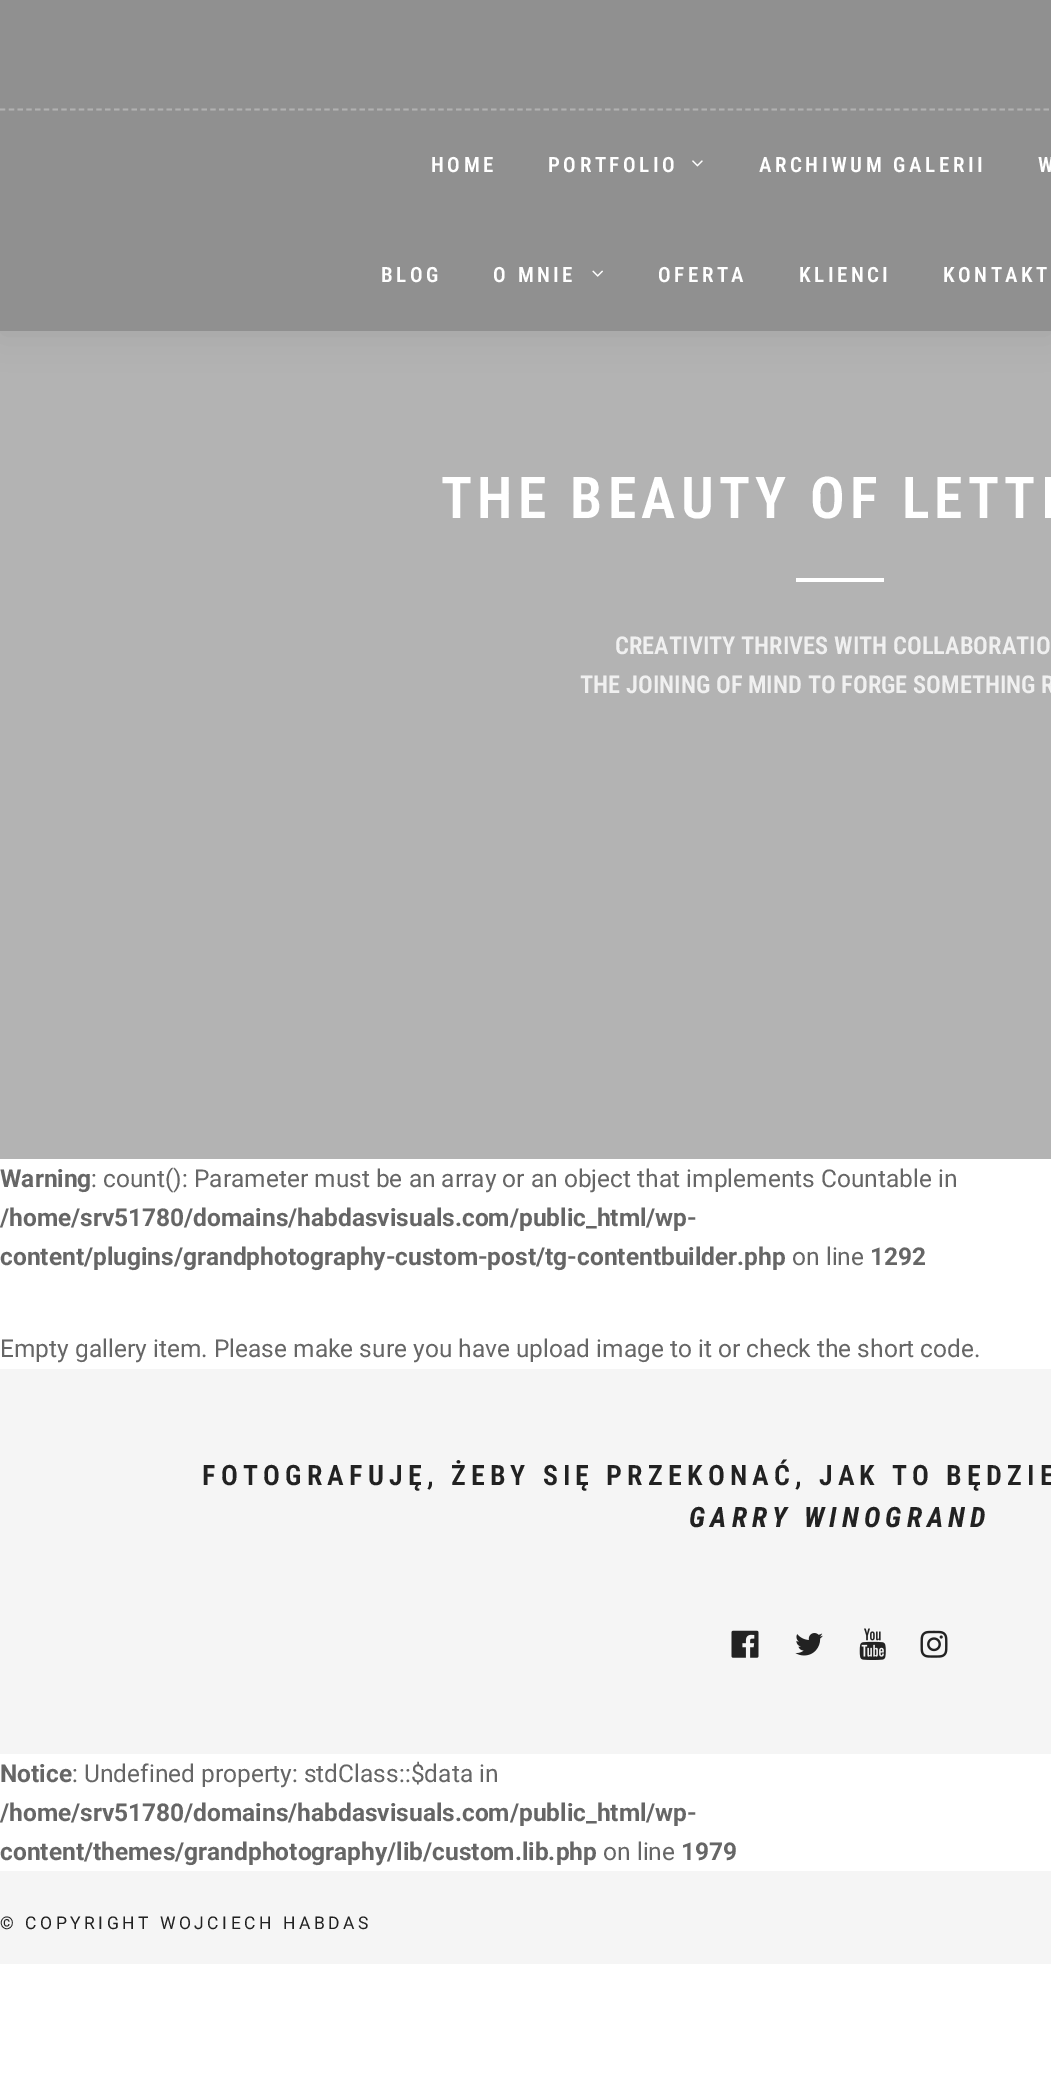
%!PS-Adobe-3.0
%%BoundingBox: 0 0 1051 2091
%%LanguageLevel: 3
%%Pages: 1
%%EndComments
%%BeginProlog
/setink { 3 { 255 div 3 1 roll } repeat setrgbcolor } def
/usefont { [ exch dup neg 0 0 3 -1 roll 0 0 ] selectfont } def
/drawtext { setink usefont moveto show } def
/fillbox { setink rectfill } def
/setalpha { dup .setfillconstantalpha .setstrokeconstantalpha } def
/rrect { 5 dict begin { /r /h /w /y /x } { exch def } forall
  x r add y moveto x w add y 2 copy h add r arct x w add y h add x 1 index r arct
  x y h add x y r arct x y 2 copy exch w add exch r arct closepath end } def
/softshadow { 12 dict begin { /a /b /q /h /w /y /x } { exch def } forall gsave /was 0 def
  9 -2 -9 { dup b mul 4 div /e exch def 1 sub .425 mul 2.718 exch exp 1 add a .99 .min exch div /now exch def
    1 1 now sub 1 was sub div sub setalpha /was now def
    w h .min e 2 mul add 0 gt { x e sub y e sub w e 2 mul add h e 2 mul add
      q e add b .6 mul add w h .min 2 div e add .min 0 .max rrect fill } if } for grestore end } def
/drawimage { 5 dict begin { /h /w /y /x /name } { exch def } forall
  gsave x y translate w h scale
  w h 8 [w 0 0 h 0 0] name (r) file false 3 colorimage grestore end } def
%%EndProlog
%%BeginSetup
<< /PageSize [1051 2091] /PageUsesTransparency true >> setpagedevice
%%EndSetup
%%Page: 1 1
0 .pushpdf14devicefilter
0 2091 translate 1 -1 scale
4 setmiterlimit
0 0 1051 2091 255 255 255 fillbox
0 331 1051 828 179 179 179 fillbox
0 0 0 setink
0 2 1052 331 0 17.5 0.07 softshadow
0 0 1051 331 144 144 144 fillbox
177 177 177 setink
1.8 setlinewidth
[5.25 3.52] 0 setdash
0 109.5 moveto 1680 109.5 lineto stroke
/RobotoCondensed-SemiBold 21 usefont
255 255 255 setink
431 172 moveto 3.5 0 (HOME) ashow
548 172 moveto 3.5 0 (PORTFOLIO) ashow
(assets/img1.rgb) 692 160 11 7 drawimage
759 172 moveto 3.5 0 (ARCHIWUM GALERII) ashow
1038 172 moveto 3.5 0 (W) ashow
381 282 moveto 3.5 0 (BLOG) ashow
493 282 moveto 3.5 0 (O MNIE) ashow
(assets/img2.rgb) 592 270 11 7 drawimage
658 282 moveto 3.5 0 (OFERTA) ashow
799 282 moveto 3.5 0 (KLIENCI) ashow
943 282 moveto 3.5 0 (KONTAKT) ashow
/RobotoCondensed-SemiBold 57.75 usefont
441 518 moveto 5.25 0 (THE BEAUTY OF LETTI) ashow
796 578 88 4 255 255 255 fillbox
(CREATIVITY THRIVES WITH COLLABORATIO) 615 654 /RobotoCondensed-SemiBold 24.5 240 240 240 drawtext
(THE JOINING OF MIND TO FORGE SOMETHING R) 580 693 /RobotoCondensed-SemiBold 24.5 240 240 240 drawtext
(Warning) 0 1187 /Roboto-Bold 24.5 102 102 102 drawtext
(: count\(\): Parameter must be an array or an object that implements Countable in) 91 1187 /Roboto-Regular 24.5 102 102 102 drawtext
(/home/srv51780/domains/habdasvisuals.com/public_html/wp-) 0 1226 /Roboto-Bold 24.5 102 102 102 drawtext
(content/plugins/grandphotography-custom-post/tg-contentbuilder.php) 0 1265 /Roboto-Bold 24.5 102 102 102 drawtext
(on line) 792 1265 /Roboto-Regular 24.5 102 102 102 drawtext
(1292) 870 1265 /Roboto-Bold 24.5 102 102 102 drawtext
(Empty gallery item. Please make sure you have upload image to it or check the short code.) 0 1357 /Roboto-Regular 24.5 102 102 102 drawtext
0 1369 1051 385 245 245 245 fillbox
/RobotoCondensed-SemiBold 28 usefont
34 34 34 setink
202 1485 moveto 5.25 0 (FOTOGRAFUJĘ, ŻEBY SIĘ PRZEKONAĆ, JAK TO BĘDZIE) ashow
/RobotoCondensed-BoldItalic 28 usefont
689 1527 moveto 5.25 0 (GARRY WINOGRAND) ashow
(assets/img3.rgb) 731 1630 28 28 drawimage
(assets/img4.rgb) 795 1633 28 23 drawimage
(assets/img5.rgb) 859 1628 27 32 drawimage
(assets/img6.rgb) 920 1630 28 28 drawimage
(Notice) 0 1782 /Roboto-Bold 24.5 102 102 102 drawtext
(: Undefined property: stdClass::$data in) 72 1782 /Roboto-Regular 24.5 102 102 102 drawtext
(/home/srv51780/domains/habdasvisuals.com/public_html/wp-) 0 1821 /Roboto-Bold 24.5 102 102 102 drawtext
(content/themes/grandphotography/lib/custom.lib.php) 0 1860 /Roboto-Bold 24.5 102 102 102 drawtext
(on line) 603 1860 /Roboto-Regular 24.5 102 102 102 drawtext
(1979) 681 1860 /Roboto-Bold 24.5 102 102 102 drawtext
0 1871 1051 93 245 245 245 fillbox
/Roboto-Regular 17.5 usefont
34 34 34 setink
0 1929 moveto 3.5 0 (© COPYRIGHT WOJCIECH HABDAS) ashow
.poppdf14devicefilter showpage
%%EOF
